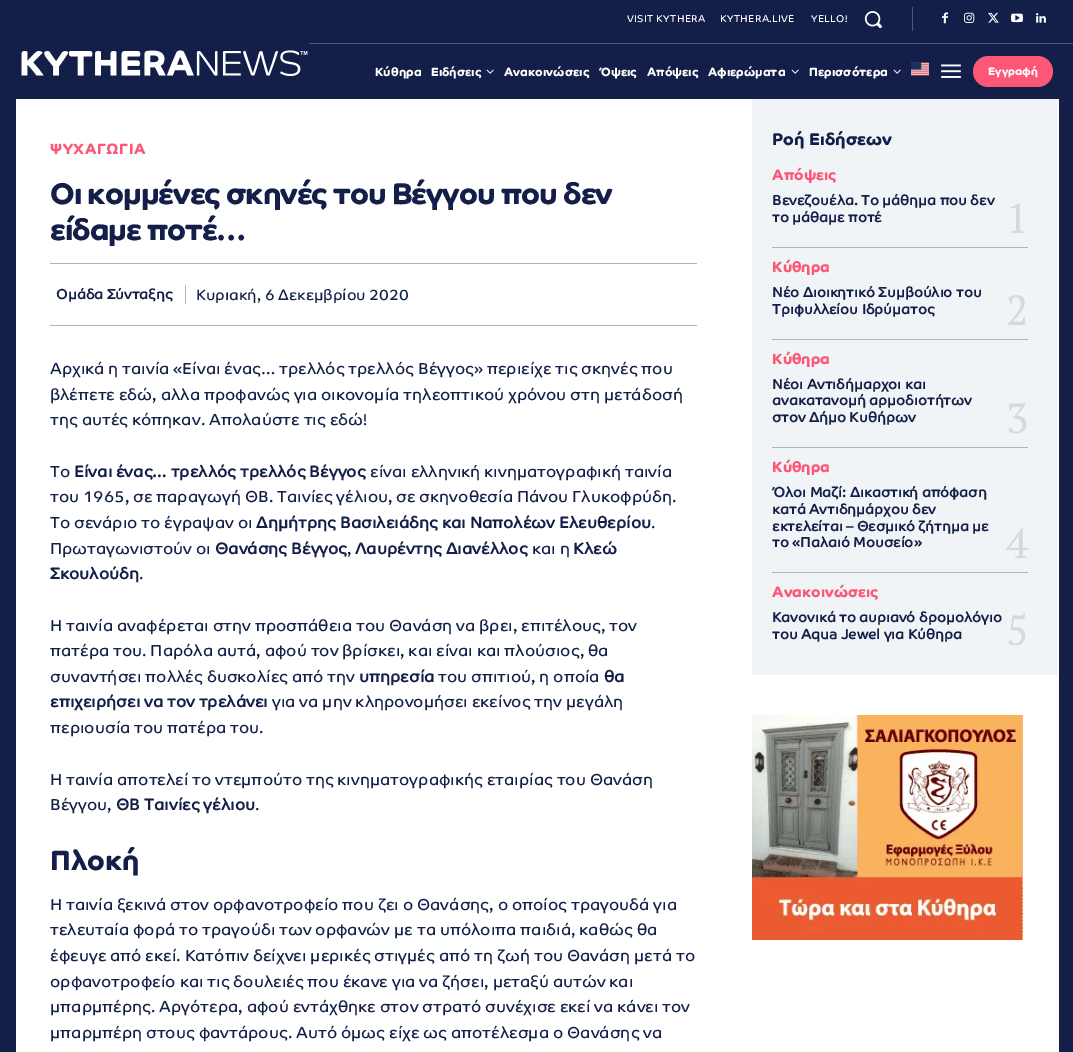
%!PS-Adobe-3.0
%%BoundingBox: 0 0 1073 1052
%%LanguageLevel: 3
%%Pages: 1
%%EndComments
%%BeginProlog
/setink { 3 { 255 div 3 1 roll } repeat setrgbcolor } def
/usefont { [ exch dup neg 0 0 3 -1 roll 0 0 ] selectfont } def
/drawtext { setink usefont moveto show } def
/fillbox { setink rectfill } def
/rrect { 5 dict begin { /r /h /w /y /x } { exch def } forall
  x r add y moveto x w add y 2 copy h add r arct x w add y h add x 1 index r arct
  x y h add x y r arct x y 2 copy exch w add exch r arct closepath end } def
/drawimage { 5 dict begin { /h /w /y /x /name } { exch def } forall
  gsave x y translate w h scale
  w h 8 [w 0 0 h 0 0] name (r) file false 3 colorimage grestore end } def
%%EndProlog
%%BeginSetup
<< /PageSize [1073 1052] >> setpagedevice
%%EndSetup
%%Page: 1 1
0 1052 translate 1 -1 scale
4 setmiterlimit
0 0 1073 1052 19 31 73 fillbox
(assets/img1.rgb) 21 50 287 27 drawimage
/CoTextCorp-Regular 10 usefont
255 255 255 setink
627 22 moveto 0.25 0 (VISIT KYTHERA) ashow
720 22 moveto 0.25 0 (KYTHERA.LIVE) ashow
811 22 moveto 0.25 0 (YELLO!) ashow
(assets/img2.rgb) 864 11 18 18 drawimage
912 7 1 24 78 87 119 fillbox
(assets/img3.rgb) 942 12 6 12 drawimage
(assets/img4.rgb) 964 12 11 11 drawimage
(assets/img5.rgb) 988 12 11 11 drawimage
(assets/img6.rgb) 1011 13 12 10 drawimage
(assets/img7.rgb) 1036 13 10 10 drawimage
309 43 764 1 78 87 119 fillbox
(Κύθηρα) 375 76 /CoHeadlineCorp-Bold 12 255 255 255 drawtext
(Ειδήσεις) 431 76 /CoHeadlineCorp-Bold 12 255 255 255 drawtext
(assets/img8.rgb) 486 69 8 5 drawimage
(Ανακοινώσεις) 504 76 /CoHeadlineCorp-Bold 12 255 255 255 drawtext
(Όψεις) 599 76 /CoHeadlineCorp-Bold 12 255 255 255 drawtext
(Απόψεις) 647 76 /CoHeadlineCorp-Bold 12 255 255 255 drawtext
(Αφιερώματα) 708 76 /CoHeadlineCorp-Bold 12 255 255 255 drawtext
(assets/img8.rgb) 791 69 8 5 drawimage
(Περισσότερα) 809 76 /CoHeadlineCorp-Bold 12 255 255 255 drawtext
(assets/img8.rgb) 893 69 8 5 drawimage
(assets/img9.rgb) 911 62 18 14 drawimage
(assets/img10.rgb) 941 64 20 14 drawimage
252 87 118 setink
973 56 80 31 15.5 rrect fill
(Εγγραφή) 988 75 /CoHeadlineCorp-Bold 11 255 255 255 drawtext
16 99 1043 953 255 255 255 fillbox
/CoHeadlineCorp-Bold 15 usefont
252 87 118 setink
50 154 moveto 0.5 0 (ΨΥΧΑΓΩΓΙΑ) ashow
/CoHeadlineCorp-Bold 30 usefont
19 31 73 setink
50 204 moveto -1 0 (Οι κομμένες σκηνές του Βέγγου που δεν) ashow
50 240 moveto -1 0 (είδαμε ποτέ…) ashow
50 263 647 1 177 180 188 fillbox
50 325 647 1 177 180 188 fillbox
(Ομάδα Σύνταξης) 56 299 /CoTextCorp-Bold 14 19 31 73 drawtext
185 285 1 19 177 180 188 fillbox
(Κυριακή, 6 Δεκεμβρίου 2020) 196 300 /CoTextCorp-Regular 15 19 31 73 drawtext
(Αρχικά η ταινία «Είναι ένας… τρελλός τρελλός Βέγγος» περιείχε τις σκηνές που) 50 374 /CoTextCorp-Regular 16 19 31 73 drawtext
(βλέπετε εδώ, αλλα προφανώς για οικονομία τηλεοπτικού χρόνου στη μετάδοσή) 50 400 /CoTextCorp-Regular 16 19 31 73 drawtext
(της αυτές κόπηκαν. Απολαύστε τις εδώ!) 50 425 /CoTextCorp-Regular 16 19 31 73 drawtext
(Το) 50 477 /CoTextCorp-Regular 16 19 31 73 drawtext
(Είναι ένας… τρελλός τρελλός Βέγγος) 74 477 /CoTextCorp-Bold 16 19 31 73 drawtext
(είναι ελληνική κινηματογραφική ταινία) 370 477 /CoTextCorp-Regular 16 19 31 73 drawtext
(του 1965, σε παραγωγή ΘΒ. Ταινίες γέλιου, σε σκηνοθεσία Πάνου Γλυκοφρύδη.) 50 502 /CoTextCorp-Regular 16 19 31 73 drawtext
(Το σενάριο το έγραψαν οι) 50 528 /CoTextCorp-Regular 16 19 31 73 drawtext
(Δημήτρης Βασιλειάδης και Ναπολέων Ελευθερίου) 256 528 /CoTextCorp-Bold 16 19 31 73 drawtext
(.) 651 528 /CoTextCorp-Regular 16 19 31 73 drawtext
(Πρωταγωνιστούν οι) 50 554 /CoTextCorp-Regular 16 19 31 73 drawtext
(Θανάσης Βέγγος) 215 554 /CoTextCorp-Bold 16 19 31 73 drawtext
(,) 347 554 /CoTextCorp-Regular 16 19 31 73 drawtext
(Λαυρέντης Διανέλλος) 355 554 /CoTextCorp-Bold 16 19 31 73 drawtext
(και η) 532 554 /CoTextCorp-Regular 16 19 31 73 drawtext
(Κλεώ) 573 554 /CoTextCorp-Bold 16 19 31 73 drawtext
(Σκουλούδη) 50 579 /CoTextCorp-Bold 16 19 31 73 drawtext
(.) 139 579 /CoTextCorp-Regular 16 19 31 73 drawtext
(Η ταινία αναφέρεται στην προσπάθεια του Θανάση να βρει, επιτέλους, τον) 50 631 /CoTextCorp-Regular 16 19 31 73 drawtext
(πατέρα του. Παρόλα αυτά, αφού τον βρίσκει, και είναι και πλούσιος, θα) 50 656 /CoTextCorp-Regular 16 19 31 73 drawtext
(συναντήσει πολλές δυσκολίες από την) 50 682 /CoTextCorp-Regular 16 19 31 73 drawtext
(υπηρεσία) 359 682 /CoTextCorp-Bold 16 19 31 73 drawtext
(του σπιτιού, η οποία) 438 682 /CoTextCorp-Regular 16 19 31 73 drawtext
(θα) 604 682 /CoTextCorp-Bold 16 19 31 73 drawtext
(επιχειρήσει να τον τρελάνει) 50 707 /CoTextCorp-Bold 16 19 31 73 drawtext
(για να μην κληρονομήσει εκείνος την μεγάλη) 272 707 /CoTextCorp-Regular 16 19 31 73 drawtext
(περιουσία του πατέρα του.) 50 733 /CoTextCorp-Regular 16 19 31 73 drawtext
(Η ταινία αποτελεί το ντεμπούτο της κινηματογραφικής εταιρίας του Θανάση) 50 785 /CoTextCorp-Regular 16 19 31 73 drawtext
(Βέγγου,) 50 810 /CoTextCorp-Regular 16 19 31 73 drawtext
(ΘΒ Ταινίες γέλιου) 116 810 /CoTextCorp-Bold 16 19 31 73 drawtext
(.) 255 810 /CoTextCorp-Regular 16 19 31 73 drawtext
(Πλοκή) 50 870 /CoHeadlineCorp-Bold 28 19 31 73 drawtext
(Η ταινία ξεκινά στον ορφανοτροφείο που ζει ο Θανάσης, ο οποίος τραγουδά για) 50 910 /CoTextCorp-Regular 16 19 31 73 drawtext
(τελευταία φορά το τραγούδι των ορφανών με τα υπόλοιπα παιδιά, καθώς θα) 50 935 /CoTextCorp-Regular 16 19 31 73 drawtext
(έφευγε από εκεί. Κατόπιν δείχνει μερικές στιγμές από τη ζωή του Θανάση μετά το) 50 961 /CoTextCorp-Regular 16 19 31 73 drawtext
(ορφανοτροφείο και τις δουλειές που έκανε για να ζήσει, μεταξύ αυτών και) 50 987 /CoTextCorp-Regular 16 19 31 73 drawtext
(μπαρμπέρης. Αργότερα, αφού εντάχθηκε στον στρατό συνέχισε εκεί να κάνει τον) 50 1012 /CoTextCorp-Regular 16 19 31 73 drawtext
(μπαρμπέρη στους φαντάρους. Αυτό όμως είχε ως αποτέλεσμα ο Θανάσης να) 50 1038 /CoTextCorp-Regular 16 19 31 73 drawtext
752 99 306 576 241 244 247 fillbox
(Ροή Ειδήσεων) 772 145 /CoHeadlineCorp-Bold 17 19 31 73 drawtext
(Απόψεις) 772 180 /CoHeadlineCorp-Bold 15 252 87 118 drawtext
(Βενεζουέλα. Το μάθημα που δεν) 772 205 /CoTextCorp-Bold 14 19 31 73 drawtext
(το μάθαμε ποτέ) 772 222 /CoTextCorp-Bold 14 19 31 73 drawtext
772 247 256 1 177 180 188 fillbox
(1) 1006 233 /PTSerif-Regular 42 210 218 225 drawtext
(Κύθηρα) 772 272 /CoHeadlineCorp-Bold 15 252 87 118 drawtext
(Νέο Διοικητικό Συμβούλιο του) 772 297 /CoTextCorp-Bold 14 19 31 73 drawtext
(Τριφυλλείου Ιδρύματος) 772 314 /CoTextCorp-Bold 14 19 31 73 drawtext
772 339 256 1 177 180 188 fillbox
(2) 1006 325 /PTSerif-Regular 42 210 218 225 drawtext
(Κύθηρα) 772 364 /CoHeadlineCorp-Bold 15 252 87 118 drawtext
(Νέοι Αντιδήμαρχοι και) 772 389 /CoTextCorp-Bold 14 19 31 73 drawtext
(ανακατανομή αρμοδιοτήτων) 772 405 /CoTextCorp-Bold 14 19 31 73 drawtext
(στον Δήμο Κυθήρων) 772 422 /CoTextCorp-Bold 14 19 31 73 drawtext
772 447 256 1 177 180 188 fillbox
(3) 1006 433 /PTSerif-Regular 42 210 218 225 drawtext
(Κύθηρα) 772 472 /CoHeadlineCorp-Bold 15 252 87 118 drawtext
(Όλοι Μαζί: Δικαστική απόφαση) 772 497 /CoTextCorp-Bold 14 19 31 73 drawtext
(κατά Αντιδημάρχου δεν) 772 514 /CoTextCorp-Bold 14 19 31 73 drawtext
(εκτελείται – Θεσμικό ζήτημα με) 772 531 /CoTextCorp-Bold 14 19 31 73 drawtext
(το «Παλαιό Μουσείο») 772 547 /CoTextCorp-Bold 14 19 31 73 drawtext
772 572 256 1 177 180 188 fillbox
(4) 1006 558 /PTSerif-Regular 42 210 218 225 drawtext
(Ανακοινώσεις) 772 597 /CoHeadlineCorp-Bold 15 252 87 118 drawtext
(Κανονικά το αυριανό δρομολόγιο) 772 622 /CoTextCorp-Bold 14 19 31 73 drawtext
(του Aqua Jewel για Κύθηρα) 772 639 /CoTextCorp-Bold 14 19 31 73 drawtext
(5) 1006 645 /PTSerif-Regular 42 210 218 225 drawtext
(assets/img11.rgb) 752 715 271 225 drawimage
showpage
%%EOF
